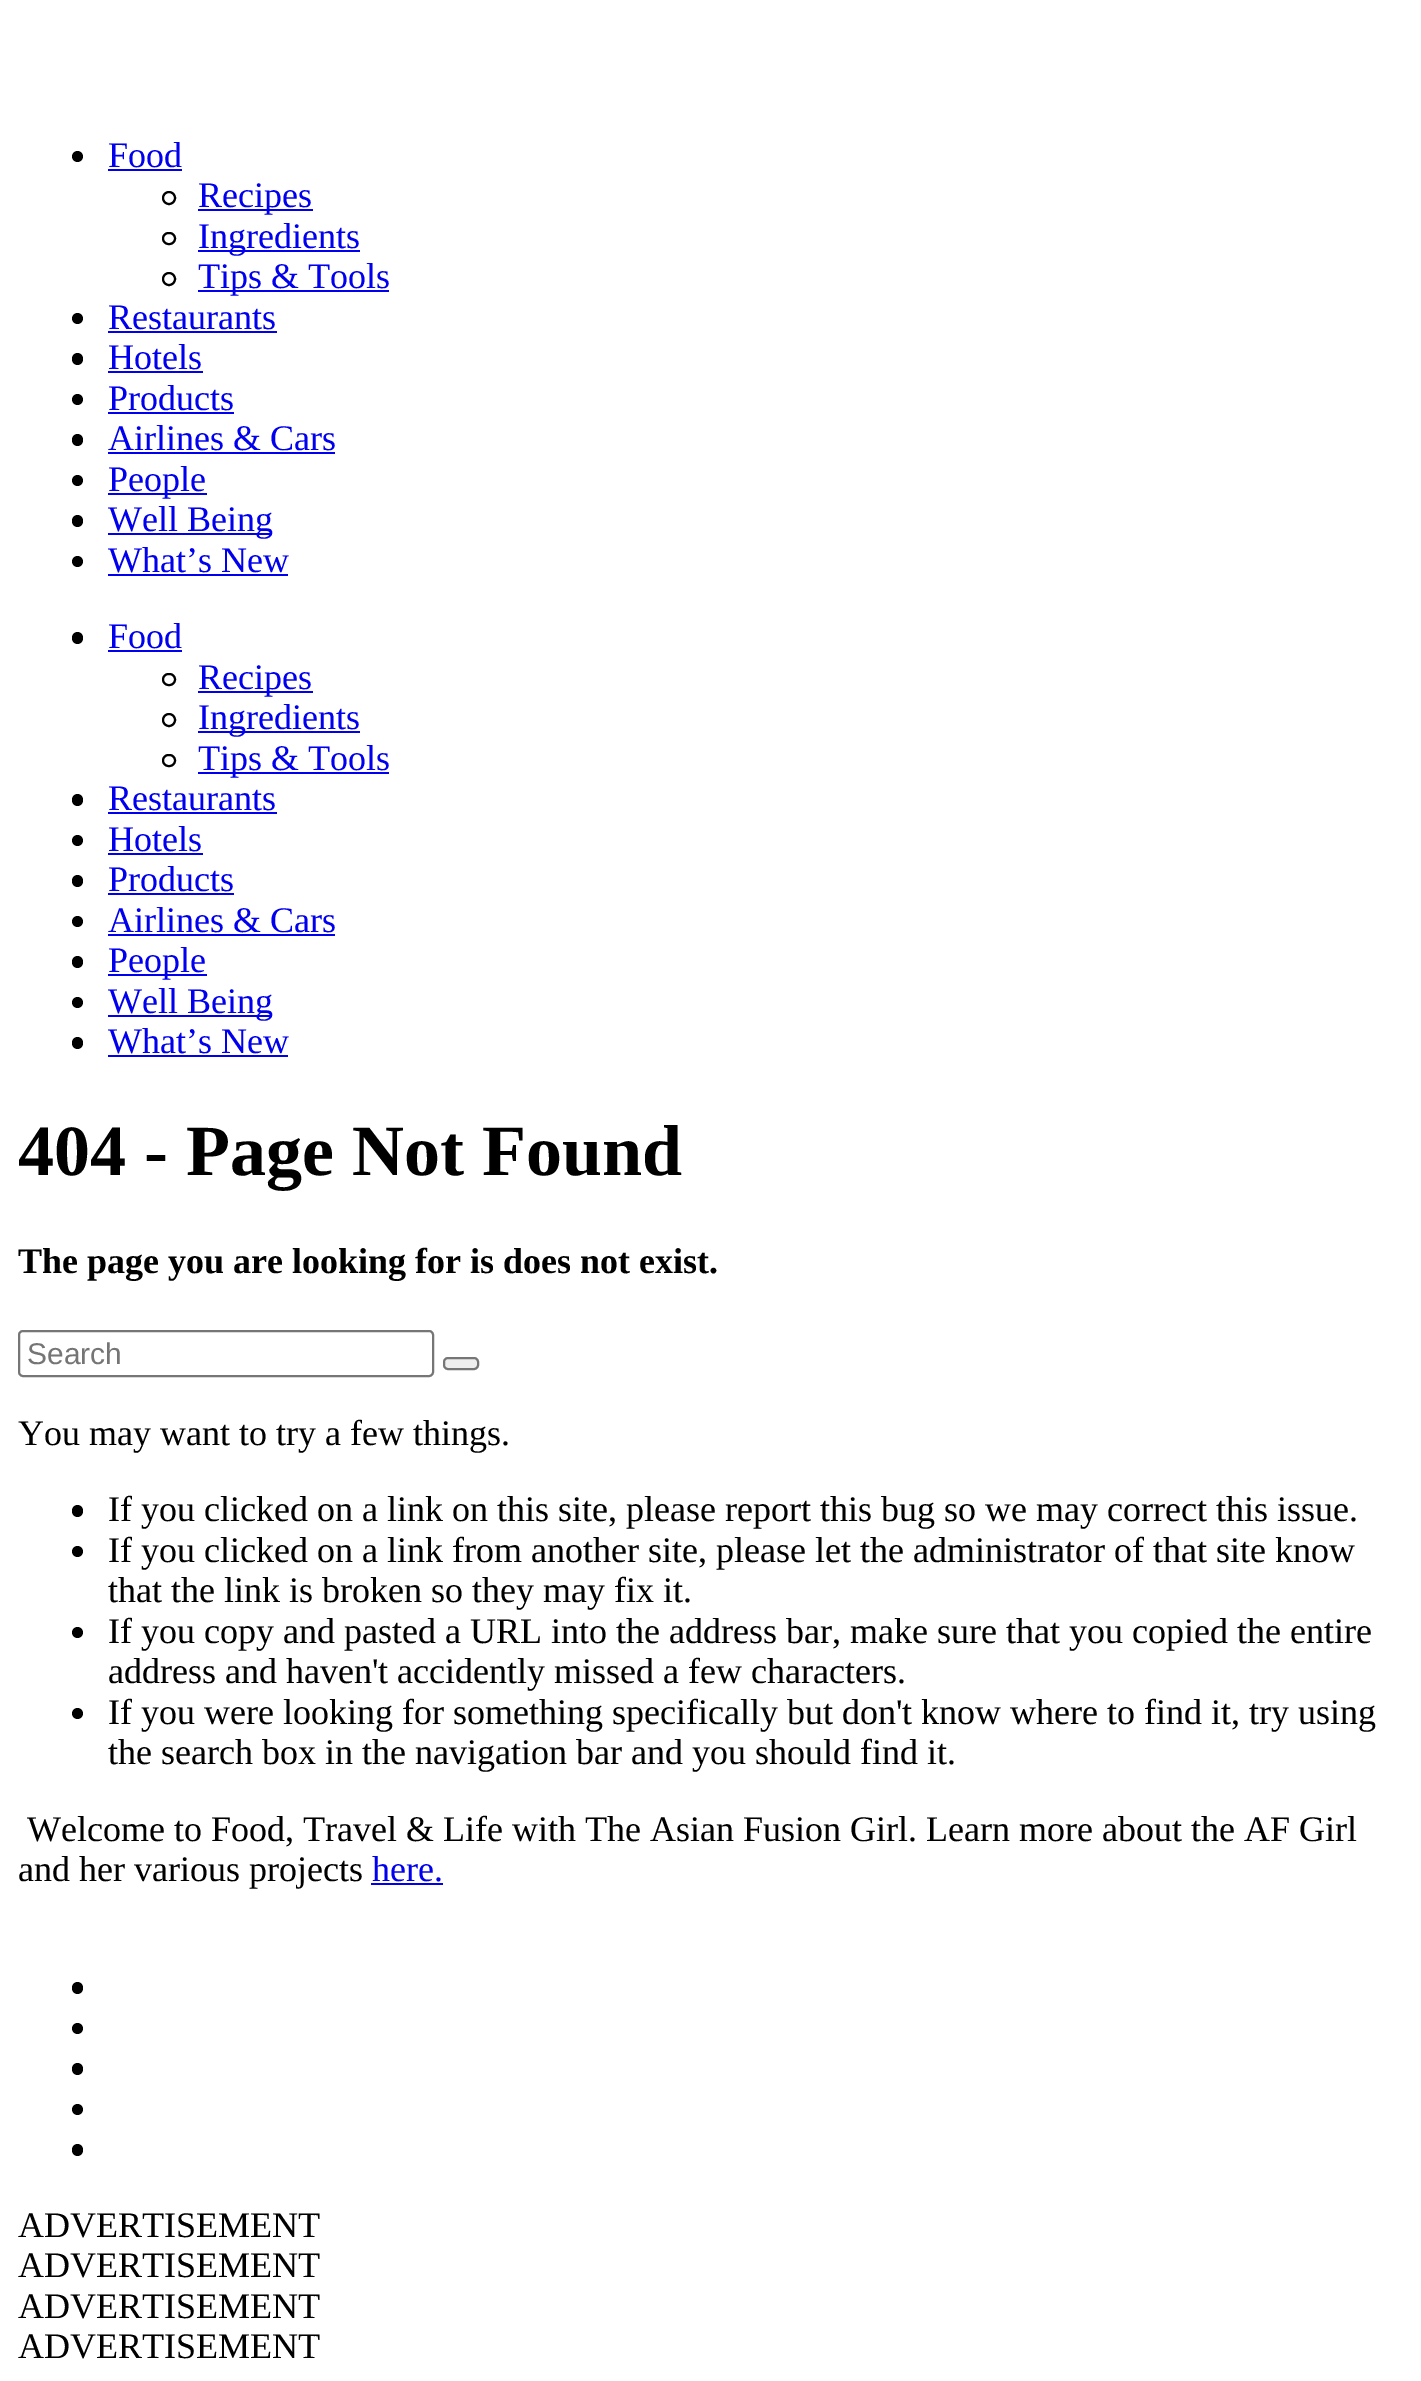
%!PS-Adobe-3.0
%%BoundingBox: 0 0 1421 2381
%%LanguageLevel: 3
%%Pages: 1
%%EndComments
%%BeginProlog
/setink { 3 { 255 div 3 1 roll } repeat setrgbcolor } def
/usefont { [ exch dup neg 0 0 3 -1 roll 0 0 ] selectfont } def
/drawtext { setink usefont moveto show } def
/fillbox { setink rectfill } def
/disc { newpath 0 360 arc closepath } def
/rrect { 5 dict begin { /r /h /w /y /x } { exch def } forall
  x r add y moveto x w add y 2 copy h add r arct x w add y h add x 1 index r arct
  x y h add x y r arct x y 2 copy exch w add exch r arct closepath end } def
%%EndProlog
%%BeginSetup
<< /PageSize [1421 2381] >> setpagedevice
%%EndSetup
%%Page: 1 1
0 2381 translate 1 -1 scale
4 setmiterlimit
0 0 1421 2381 255 255 255 fillbox
0 0 0 setink
77.5 156.5 5.5 disc fill
(Food) 108 167 /LiberationSerif-Regular 36 0 0 238 drawtext
108 169 74 2 0 0 238 fillbox
0 0 0 setink
2 setlinewidth
169 198 6 disc stroke
198 209 115 2 0 0 238 fillbox
(Recipes) 198 207 /LiberationSerif-Regular 36 0 0 238 drawtext
0 0 0 setink
163 233 12 11 5.5 rrect stroke
198 250 162 2 0 0 238 fillbox
(Ingredients) 198 248 /LiberationSerif-Regular 36 0 0 238 drawtext
0 0 0 setink
169 279 6 disc stroke
198 290 191 2 0 0 238 fillbox
(Tips & Tools) 198 288 /LiberationSerif-Regular 36 0 0 238 drawtext
0 0 0 setink
77.5 318.5 5.5 disc fill
(Restaurants) 108 329 /LiberationSerif-Regular 36 0 0 238 drawtext
108 331 169 2 0 0 238 fillbox
0 0 0 setink
72 353 11 12 5.5 rrect fill
(Hotels) 108 369 /LiberationSerif-Regular 36 0 0 238 drawtext
108 371 95 2 0 0 238 fillbox
0 0 0 setink
77.5 399.5 5.5 disc fill
(Products) 108 410 /LiberationSerif-Regular 36 0 0 238 drawtext
108 412 126 2 0 0 238 fillbox
0 0 0 setink
72 434 11 12 5.5 rrect fill
(Airlines & Cars) 108 450 /LiberationSerif-Regular 36 0 0 238 drawtext
108 452 227 2 0 0 238 fillbox
0 0 0 setink
77.5 480.5 5.5 disc fill
108 493 99 2 0 0 238 fillbox
(People) 108 491 /LiberationSerif-Regular 36 0 0 238 drawtext
0 0 0 setink
72 515 11 12 5.5 rrect fill
108 533 164 2 0 0 238 fillbox
(Well Being) 108 531 /LiberationSerif-Regular 36 0 0 238 drawtext
0 0 0 setink
77.5 561.5 5.5 disc fill
(What’s New) 108 572 /LiberationSerif-Regular 36 0 0 238 drawtext
108 574 180 2 0 0 238 fillbox
0 0 0 setink
72 632 11 12 5.5 rrect fill
(Food) 108 648 /LiberationSerif-Regular 36 0 0 238 drawtext
108 650 74 2 0 0 238 fillbox
0 0 0 setink
163 674 12 11 5.5 rrect stroke
198 691 115 2 0 0 238 fillbox
(Recipes) 198 689 /LiberationSerif-Regular 36 0 0 238 drawtext
0 0 0 setink
169 720 6 disc stroke
198 731 162 2 0 0 238 fillbox
(Ingredients) 198 729 /LiberationSerif-Regular 36 0 0 238 drawtext
0 0 0 setink
163 755 12 11 5.5 rrect stroke
198 772 191 2 0 0 238 fillbox
(Tips & Tools) 198 770 /LiberationSerif-Regular 36 0 0 238 drawtext
0 0 0 setink
72 794 11 12 5.5 rrect fill
(Restaurants) 108 810 /LiberationSerif-Regular 36 0 0 238 drawtext
108 812 169 2 0 0 238 fillbox
0 0 0 setink
77.5 840.5 5.5 disc fill
(Hotels) 108 851 /LiberationSerif-Regular 36 0 0 238 drawtext
108 853 95 2 0 0 238 fillbox
0 0 0 setink
72 875 11 12 5.5 rrect fill
(Products) 108 891 /LiberationSerif-Regular 36 0 0 238 drawtext
108 893 126 2 0 0 238 fillbox
0 0 0 setink
77.5 921.5 5.5 disc fill
(Airlines & Cars) 108 932 /LiberationSerif-Regular 36 0 0 238 drawtext
108 934 227 2 0 0 238 fillbox
0 0 0 setink
72 956 11 12 5.5 rrect fill
108 974 99 2 0 0 238 fillbox
(People) 108 972 /LiberationSerif-Regular 36 0 0 238 drawtext
0 0 0 setink
77.5 1002.5 5.5 disc fill
108 1015 164 2 0 0 238 fillbox
(Well Being) 108 1013 /LiberationSerif-Regular 36 0 0 238 drawtext
0 0 0 setink
72 1037 11 12 5.5 rrect fill
(What’s New) 108 1053 /LiberationSerif-Regular 36 0 0 238 drawtext
108 1055 180 2 0 0 238 fillbox
(404 - Page Not Found) 18 1175 /LiberationSerif-Bold 72 0 0 0 drawtext
(The page you are looking for is does not exist.) 18 1273 /LiberationSerif-Bold 36 0 0 0 drawtext
118 118 118 setink
19 1331 414 45 4 rrect stroke
(Search) 27 1364 /LiberationSans-Regular 30 117 117 117 drawtext
239 239 239 setink
444 1358 34 11 4 rrect gsave fill grestore
118 118 118 setink
stroke
(You may want to try a few things.) 18 1445 /LiberationSerif-Regular 36 0 0 0 drawtext
72 1505 11 12 5.5 rrect fill
(If you clicked on a link on this site, please report this bug so we may correct this issue.) 108 1521 /LiberationSerif-Regular 36 0 0 0 drawtext
77.5 1551.5 5.5 disc fill
(If you clicked on a link from another site, please let the administrator of that site know) 108 1562 /LiberationSerif-Regular 36 0 0 0 drawtext
(that the link is broken so they may fix it.) 108 1602 /LiberationSerif-Regular 36 0 0 0 drawtext
77.5 1632.5 5.5 disc fill
(If you copy and pasted a URL into the address bar, make sure that you copied the entire) 108 1643 /LiberationSerif-Regular 36 0 0 0 drawtext
(address and haven't accidently missed a few characters.) 108 1683 /LiberationSerif-Regular 36 0 0 0 drawtext
77.5 1713.5 5.5 disc fill
(If you were looking for something specifically but don't know where to find it, try using) 108 1724 /LiberationSerif-Regular 36 0 0 0 drawtext
(the search box in the navigation bar and you should find it.) 108 1764 /LiberationSerif-Regular 36 0 0 0 drawtext
(Welcome to Food, Travel & Life with The Asian Fusion Girl. Learn more about the AF Girl) 27 1841 /LiberationSerif-Regular 36 0 0 0 drawtext
(and her various projects) 18 1881 /LiberationSerif-Regular 36 0 0 0 drawtext
(here.) 372 1881 /LiberationSerif-Regular 36 0 0 238 drawtext
371 1883 72 2 0 0 238 fillbox
0 0 0 setink
72 1982 11 12 5.5 rrect fill
77.5 2028.5 5.5 disc fill
72 2063 11 12 5.5 rrect fill
77.5 2109.5 5.5 disc fill
72 2144 11 12 5.5 rrect fill
(ADVERTISEMENT) 18 2237 /LiberationSerif-Regular 36 0 0 0 drawtext
(ADVERTISEMENT) 18 2277 /LiberationSerif-Regular 36 0 0 0 drawtext
(ADVERTISEMENT) 18 2318 /LiberationSerif-Regular 36 0 0 0 drawtext
(ADVERTISEMENT) 18 2358 /LiberationSerif-Regular 36 0 0 0 drawtext
showpage
%%EOF
